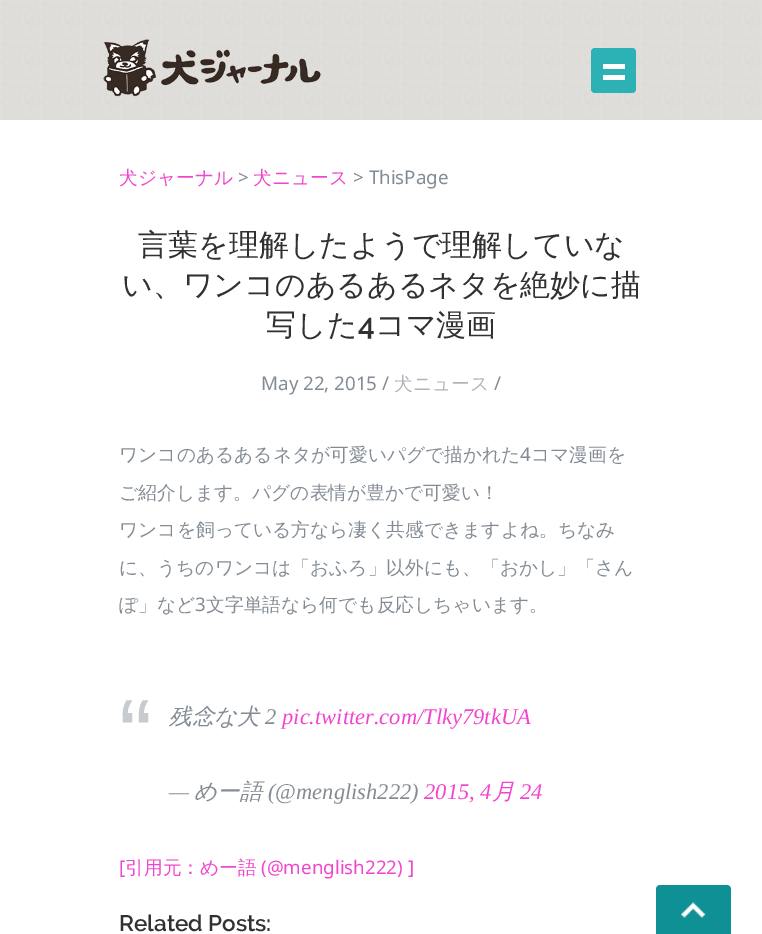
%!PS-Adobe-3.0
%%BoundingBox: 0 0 762 934
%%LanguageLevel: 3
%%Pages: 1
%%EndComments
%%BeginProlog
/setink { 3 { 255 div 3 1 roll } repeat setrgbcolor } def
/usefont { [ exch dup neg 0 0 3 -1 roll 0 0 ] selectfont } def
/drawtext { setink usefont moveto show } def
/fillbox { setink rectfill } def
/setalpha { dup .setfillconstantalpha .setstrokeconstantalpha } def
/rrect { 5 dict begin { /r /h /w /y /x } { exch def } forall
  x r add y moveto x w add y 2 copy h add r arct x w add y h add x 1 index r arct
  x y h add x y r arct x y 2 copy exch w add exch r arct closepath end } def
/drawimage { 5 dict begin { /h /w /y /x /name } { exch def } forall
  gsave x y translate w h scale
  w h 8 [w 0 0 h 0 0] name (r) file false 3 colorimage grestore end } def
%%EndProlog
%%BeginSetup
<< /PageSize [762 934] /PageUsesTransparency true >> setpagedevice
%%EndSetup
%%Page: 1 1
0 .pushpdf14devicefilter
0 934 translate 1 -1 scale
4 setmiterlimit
0 0 762 934 255 255 255 fillbox
(assets/img1.rgb) 0 0 762 120 drawimage
(assets/img2.rgb) 103 39 219 58 drawimage
0.87 setalpha
17 171 176 setink
591 48 45 45 4 rrect fill
1 setalpha
603 64 22 5 255 255 255 fillbox
603 75 22 5 255 255 255 fillbox
(犬ジャーナル) 119 184 /WenQuanYiZenHei-Medium 18.75 242 69 205 drawtext
(>) 238 184 /NotoSans-Regular 18.75 131 140 149 drawtext
(犬ニュース) 253 184 /WenQuanYiZenHei-Medium 18.75 242 69 205 drawtext
(> ThisPage) 353 184 /NotoSans-Regular 18.75 131 140 149 drawtext
(言葉を理解したようで理解していな) 138 255 /WenQuanYiZenHei-Medium 30 49 49 49 drawtext
(い、ワンコのあるあるネタを絶妙に描) 122 295 /WenQuanYiZenHei-Medium 30 49 49 49 drawtext
(写した) 266 335 /WenQuanYiZenHei-Medium 30 49 49 49 drawtext
(4) 358 335 /Raleway-SemiBold 30 49 49 49 drawtext
(コマ漫画) 375 335 /WenQuanYiZenHei-Medium 30 49 49 49 drawtext
(May 22, 2015 /) 261 390 /NotoSans-Regular 18.75 131 140 149 drawtext
(犬ニュース) 394 390 /WenQuanYiZenHei-Medium 18.75 175 180 187 drawtext
(/) 494 390 /NotoSans-Regular 18.75 131 140 149 drawtext
(ワンコのあるあるネタが可愛いパグで描かれた) 119 461 /WenQuanYiZenHei-Medium 18.75 131 140 149 drawtext
(4) 520 461 /NotoSans-Regular 18.75 131 140 149 drawtext
(コマ漫画を) 531 461 /WenQuanYiZenHei-Medium 18.75 131 140 149 drawtext
(ご紹介します。パグの表情が豊かで可愛い！) 119 499 /WenQuanYiZenHei-Medium 18.75 131 140 149 drawtext
(ワンコを飼っている方なら凄く共感できますよね。ちなみ) 119 536 /WenQuanYiZenHei-Medium 18.75 131 140 149 drawtext
(に、うちのワンコは「おふろ」以外にも、「おかし」「さん) 119 574 /WenQuanYiZenHei-Medium 18.75 131 140 149 drawtext
(ぽ」など) 119 611 /WenQuanYiZenHei-Medium 18.75 131 140 149 drawtext
(3) 195 611 /NotoSans-Regular 18.75 131 140 149 drawtext
(文字単語なら何でも反応しちゃいます。) 206 611 /WenQuanYiZenHei-Medium 18.75 131 140 149 drawtext
(“) 119 769 /LiberationSans-Regular 100 199 203 207 drawtext
(残念な犬) 169 724 /WenQuanYiZenHei-MediumItalic 22.5 131 140 149 drawtext
(2) 265 724 /LiberationSerif-Italic 22.5 131 140 149 drawtext
(pic.twitter.com/Tlky79tkUA) 282 724 /LiberationSerif-Italic 22.5 242 69 205 drawtext
(—) 169 799 /LiberationSerif-Italic 22.5 131 140 149 drawtext
(めー語) 194 799 /WenQuanYiZenHei-MediumItalic 22.5 131 140 149 drawtext
(\(@menglish222\)) 268 799 /LiberationSerif-Italic 22.5 131 140 149 drawtext
(2015, 4) 424 799 /LiberationSerif-Italic 22.5 242 69 205 drawtext
(月) 492 799 /WenQuanYiZenHei-MediumItalic 22.5 242 69 205 drawtext
(24) 520 799 /LiberationSerif-Italic 22.5 242 69 205 drawtext
([) 119 874 /NotoSans-Regular 18.75 242 69 205 drawtext
(引用元：めー語) 125 874 /WenQuanYiZenHei-Medium 18.75 242 69 205 drawtext
(\(@menglish222\) ]) 261 874 /NotoSans-Regular 18.75 242 69 205 drawtext
(Related Posts:) 119 931 /Raleway-SemiBold 22.5 49 49 49 drawtext
15 144 149 setink
660 885 moveto 727 885 lineto 729 885 731 887 731 889 curveto 731 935 lineto 656 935 lineto 656 889 lineto 656 887 658 885 660 885 curveto closepath fill
(assets/img3.rgb) 681 902 25 16 drawimage
.poppdf14devicefilter showpage
%%EOF
